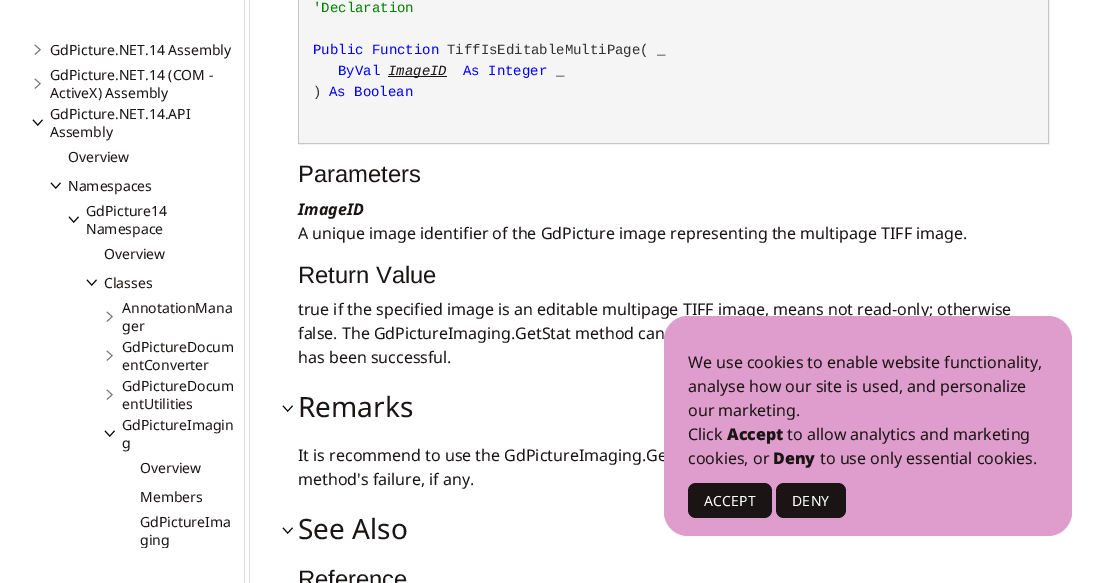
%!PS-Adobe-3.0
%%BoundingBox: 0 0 1094 583
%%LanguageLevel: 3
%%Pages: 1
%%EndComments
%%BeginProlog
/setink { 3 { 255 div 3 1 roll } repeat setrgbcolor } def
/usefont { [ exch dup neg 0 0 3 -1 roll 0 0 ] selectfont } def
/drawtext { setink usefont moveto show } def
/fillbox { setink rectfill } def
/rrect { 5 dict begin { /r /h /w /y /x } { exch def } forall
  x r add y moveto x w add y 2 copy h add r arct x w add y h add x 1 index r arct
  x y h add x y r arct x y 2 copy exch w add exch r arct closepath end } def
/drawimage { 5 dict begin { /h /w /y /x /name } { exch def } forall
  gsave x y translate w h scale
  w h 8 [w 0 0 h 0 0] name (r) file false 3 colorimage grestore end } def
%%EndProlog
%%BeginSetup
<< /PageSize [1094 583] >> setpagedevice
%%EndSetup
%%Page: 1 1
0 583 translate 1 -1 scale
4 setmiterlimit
0 0 1094 583 255 255 255 fillbox
(assets/img1.rgb) 34 44 7 11 drawimage
(GdPicture.NET.14 Assembly) 50 55 /NotoSans-Regular 14 26 20 20 drawtext
(assets/img1.rgb) 34 78 7 11 drawimage
(GdPicture.NET.14 \(COM -) 50 80 /NotoSans-Regular 14 26 20 20 drawtext
(ActiveX\) Assembly) 50 98 /NotoSans-Regular 14 26 20 20 drawtext
(assets/img2.rgb) 32 119 11 7 drawimage
(GdPicture.NET.14.API) 50 119 /NotoSans-Regular 14 26 20 20 drawtext
(Assembly) 50 137 /NotoSans-Regular 14 26 20 20 drawtext
(Overview) 68 162 /NotoSans-Regular 14 26 20 20 drawtext
(assets/img2.rgb) 50 182 11 7 drawimage
(Namespaces) 68 191 /NotoSans-Regular 14 26 20 20 drawtext
(assets/img2.rgb) 68 216 11 7 drawimage
(GdPicture14) 86 216 /NotoSans-Regular 14 26 20 20 drawtext
(Namespace) 86 234 /NotoSans-Regular 14 26 20 20 drawtext
(Overview) 104 259 /NotoSans-Regular 14 26 20 20 drawtext
(assets/img2.rgb) 86 279 11 7 drawimage
(Classes) 104 288 /NotoSans-Regular 14 26 20 20 drawtext
(assets/img1.rgb) 106 311 7 11 drawimage
(AnnotationMana) 122 313 /NotoSans-Regular 14 26 20 20 drawtext
(ger) 122 331 /NotoSans-Regular 14 26 20 20 drawtext
(assets/img1.rgb) 106 350 7 11 drawimage
(GdPictureDocum) 122 352 /NotoSans-Regular 14 26 20 20 drawtext
(entConverter) 122 370 /NotoSans-Regular 14 26 20 20 drawtext
(assets/img1.rgb) 106 389 7 11 drawimage
(GdPictureDocum) 122 391 /NotoSans-Regular 14 26 20 20 drawtext
(entUtilities) 122 409 /NotoSans-Regular 14 26 20 20 drawtext
(assets/img2.rgb) 104 430 11 7 drawimage
(GdPictureImagin) 122 430 /NotoSans-Regular 14 26 20 20 drawtext
(g) 122 448 /NotoSans-Regular 14 26 20 20 drawtext
(Overview) 140 473 /NotoSans-Regular 14 26 20 20 drawtext
(Members) 140 502 /NotoSans-Regular 14 26 20 20 drawtext
(GdPictureIma) 140 527 /NotoSans-Regular 14 26 20 20 drawtext
gsave
8 35 227 513 rectclip
(ging) 140 545 /NotoSans-Regular 14 26 20 20 drawtext
grestore
249 0 1 583 226 219 217 fillbox
244 0 1 583 226 219 217 fillbox
197 197 197 setink
298.5 -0.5 750 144 rectstroke
245 245 245 setink
299 -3 moveto 1048 -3 lineto 1048 140 lineto 1048 141.5 1046.5 143 1045 143 curveto 302 143 lineto 300.5 143 299 141.5 299 140 curveto closepath fill
('Declaration) 313 12 /LiberationMono-Regular 14 0 128 0 drawtext
(Public Function) 313 54 /LiberationMono-Regular 14 0 0 255 drawtext
(TiffIsEditableMultiPage\( _) 447 54 /LiberationMono-Regular 14 51 51 51 drawtext
(ByVal) 338 75 /LiberationMono-Regular 14 0 0 255 drawtext
388 76 59 1 26 20 20 fillbox
(ImageID) 388 75 /LiberationMono-Italic 14 26 20 20 drawtext
(As Integer) 463 75 /LiberationMono-Regular 14 0 0 255 drawtext
(_) 556 75 /LiberationMono-Regular 14 51 51 51 drawtext
(\)) 313 96 /LiberationMono-Regular 14 51 51 51 drawtext
(As Boolean) 329 96 /LiberationMono-Regular 14 0 0 255 drawtext
(Parameters) 298 182 /LiberationSans-Regular 23.75 26 20 20 drawtext
(ImageID) 298 215 /NotoSans-BoldItalic 16 26 20 20 drawtext
(A unique image identifier of the GdPicture image representing the multipage TIFF image.) 298 239 /NotoSans-Regular 16 26 20 20 drawtext
(Return Value) 298 283 /LiberationSans-Regular 23.75 26 20 20 drawtext
(true if the specified image is an editable multipage TIFF image, means not read-only; otherwise) 298 315 /NotoSans-Regular 16 26 20 20 drawtext
(false. The GdPictureImaging.GetStat method can) 298 339 /NotoSans-Regular 16 26 20 20 drawtext
(has been successful.) 298 363 /NotoSans-Regular 16 26 20 20 drawtext
(assets/img3.rgb) 282 405 11 7 drawimage
(Remarks) 298 417 /NotoSans-Regular 28 26 20 20 drawtext
(It is recommend to use the GdPictureImaging.Ge) 298 461 /NotoSans-Regular 16 26 20 20 drawtext
(method's failure, if any.) 298 485 /NotoSans-Regular 16 26 20 20 drawtext
(assets/img3.rgb) 282 527 11 7 drawimage
(See Also) 298 539 /NotoSans-Regular 28 26 20 20 drawtext
(Reference) 298 587 /LiberationSans-Regular 23.75 26 20 20 drawtext
222 157 204 setink
664 316 408 220 24 rrect fill
(We use cookies to enable website functionality,) 688 368 /NotoSans-Regular 16 26 20 20 drawtext
(analyse how our site is used, and personalize) 688 392 /NotoSans-Regular 16 26 20 20 drawtext
(our marketing.) 688 416 /NotoSans-Regular 16 26 20 20 drawtext
(Click) 688 440 /NotoSans-Regular 16 26 20 20 drawtext
(Accept) 727 440 /NotoSans-Black 16 26 20 20 drawtext
(to allow analytics and marketing) 787 440 /NotoSans-Regular 16 26 20 20 drawtext
(cookies, or) 688 464 /NotoSans-Regular 16 26 20 20 drawtext
(Deny) 773 464 /NotoSans-Black 16 26 20 20 drawtext
(to use only essential cookies.) 820 464 /NotoSans-Regular 16 26 20 20 drawtext
688 483 84 35 8 rrect fill
/NotoSans-Regular 14 usefont
255 255 255 setink
704 506 moveto 0.25 0 (ACCEPT) ashow
26 20 20 setink
776 483 70 35 8 rrect fill
255 255 255 setink
792 506 moveto 0.25 0 (DENY) ashow
showpage
%%EOF
